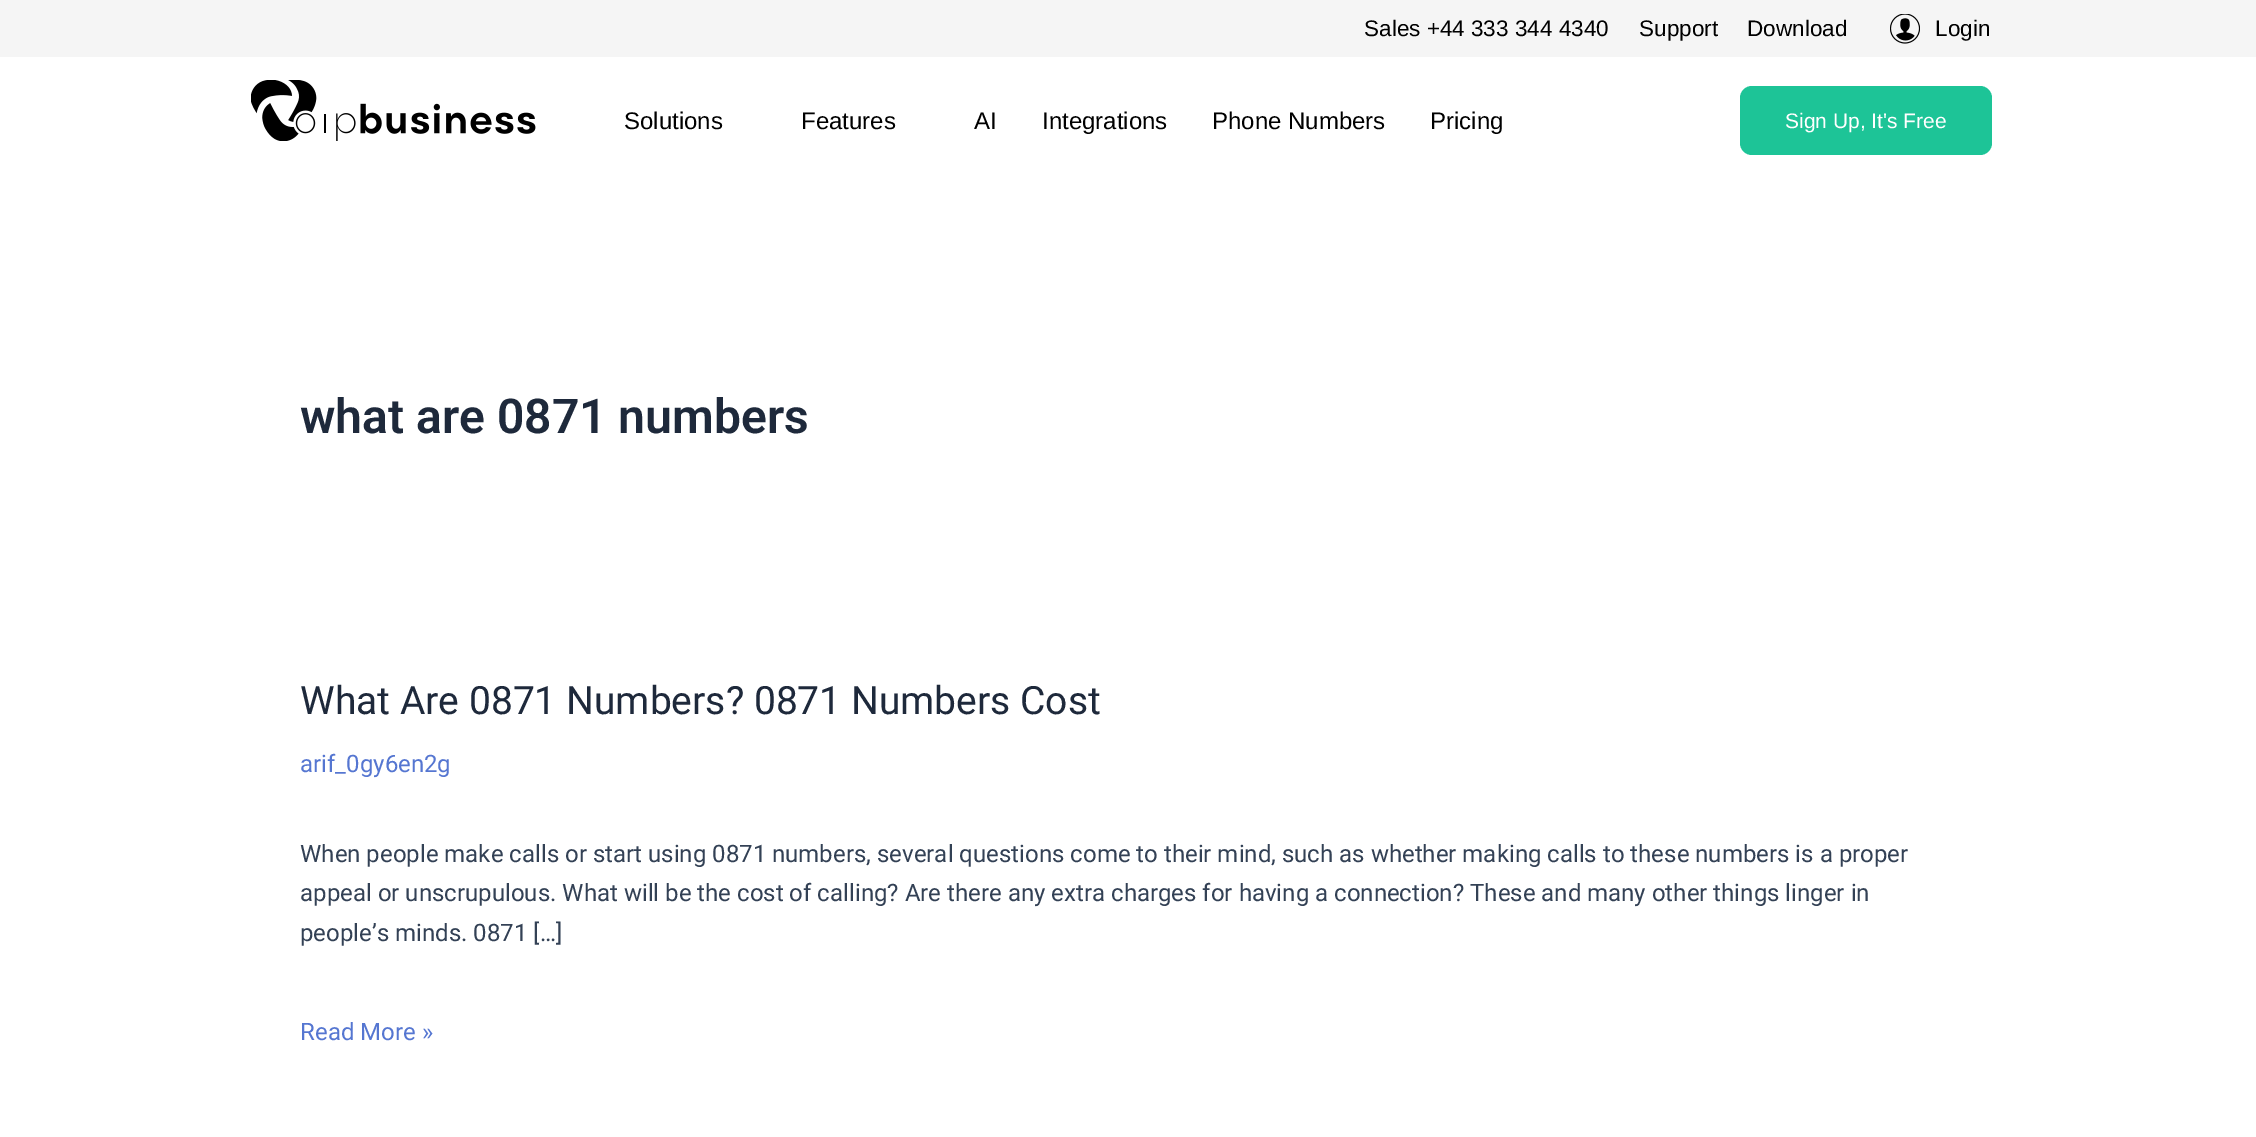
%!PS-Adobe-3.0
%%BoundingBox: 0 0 2256 1137
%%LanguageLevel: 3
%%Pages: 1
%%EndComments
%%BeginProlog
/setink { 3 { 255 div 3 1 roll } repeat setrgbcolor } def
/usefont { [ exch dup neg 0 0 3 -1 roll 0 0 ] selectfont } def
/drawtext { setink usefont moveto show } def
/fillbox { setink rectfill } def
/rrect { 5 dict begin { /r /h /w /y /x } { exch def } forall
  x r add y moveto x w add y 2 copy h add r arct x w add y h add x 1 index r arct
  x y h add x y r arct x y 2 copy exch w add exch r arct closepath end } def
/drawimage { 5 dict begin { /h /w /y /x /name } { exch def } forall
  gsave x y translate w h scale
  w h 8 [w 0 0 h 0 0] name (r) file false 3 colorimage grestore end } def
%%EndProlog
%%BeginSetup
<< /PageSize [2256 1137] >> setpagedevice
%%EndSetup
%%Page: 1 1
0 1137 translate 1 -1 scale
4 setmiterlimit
0 0 2256 1137 255 255 255 fillbox
0 0 2256 57 245 245 245 fillbox
(Sales +44 333 344 4340) 1364 36 /LiberationSans-Regular 22.5 0 0 0 drawtext
(Support) 1639 36 /LiberationSans-Regular 22.5 0 0 0 drawtext
(Download) 1747 36 /LiberationSans-Regular 22.5 0 0 0 drawtext
(assets/img1.rgb) 1890 14 30 30 drawimage
(Login) 1935 36 /LiberationSans-Regular 22.5 0 0 0 drawtext
(assets/img2.rgb) 251 80 285 61 drawimage
(Solutions) 624 129 /LiberationSans-Regular 24 0 0 0 drawtext
(Features) 801 129 /LiberationSans-Regular 24 0 0 0 drawtext
(AI) 974 129 /LiberationSans-Regular 24 0 0 0 drawtext
(Integrations) 1042 129 /LiberationSans-Regular 24 0 0 0 drawtext
(Phone Numbers) 1212 129 /LiberationSans-Regular 24 0 0 0 drawtext
(Pricing) 1430 129 /LiberationSans-Regular 24 0 0 0 drawtext
29 196 151 setink
1740 86 252 69 12 rrect fill
(Sign Up, It's Free) 1785 128 /LiberationSans-Regular 21 255 255 255 drawtext
(what are 0871 numbers) 300 433 /Roboto-SemiBold 48 30 41 59 drawtext
(What Are 0871 Numbers? 0871 Numbers Cost) 300 714 /Roboto-Regular 39 30 41 59 drawtext
(arif_0gy6en2g) 300 772 /Roboto-Regular 24 85 118 209 drawtext
(When people make calls or start using 0871 numbers, several questions come to their mind, such as whether making calls to these numbers is a proper) 300 862 /Roboto-Regular 24 51 65 85 drawtext
(appeal or unscrupulous. What will be the cost of calling? Are there any extra charges for having a connection? These and many other things linger in) 300 901 /Roboto-Regular 24 51 65 85 drawtext
(people’s minds. 0871 […]) 300 941 /Roboto-Regular 24 51 65 85 drawtext
(Read More ») 300 1040 /Roboto-Regular 24 85 118 209 drawtext
showpage
%%EOF
